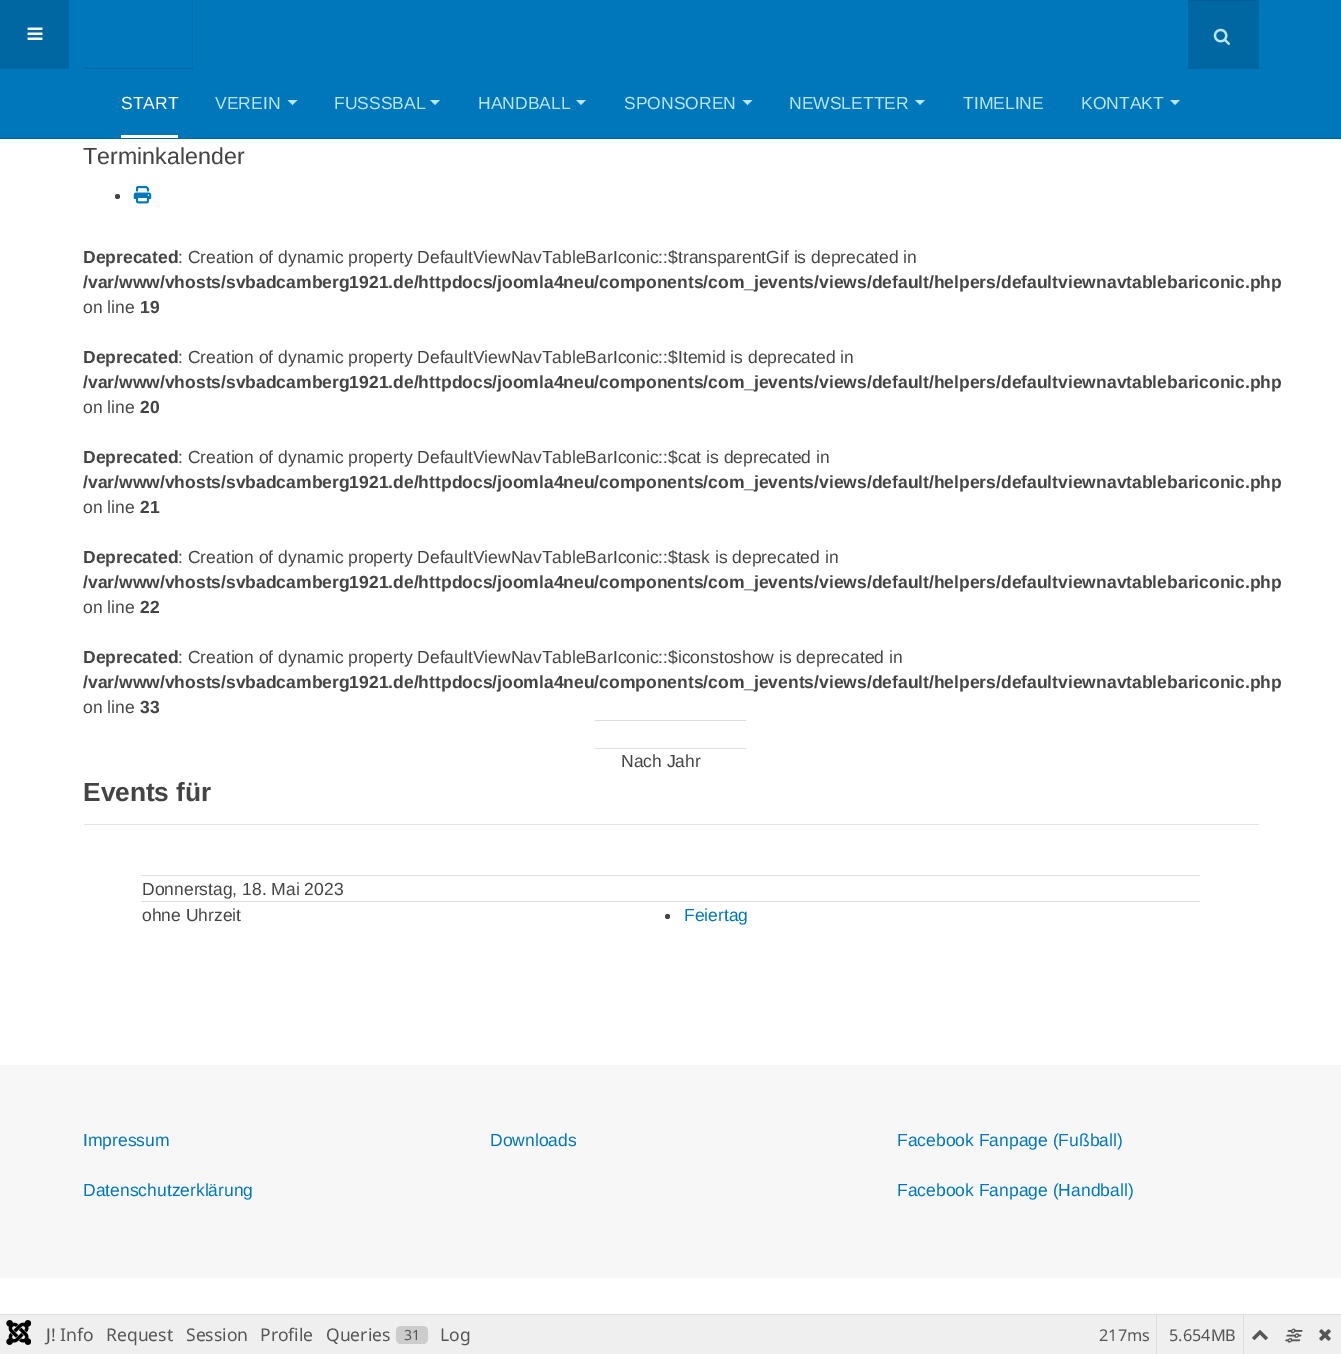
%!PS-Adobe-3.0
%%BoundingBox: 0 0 1341 1354
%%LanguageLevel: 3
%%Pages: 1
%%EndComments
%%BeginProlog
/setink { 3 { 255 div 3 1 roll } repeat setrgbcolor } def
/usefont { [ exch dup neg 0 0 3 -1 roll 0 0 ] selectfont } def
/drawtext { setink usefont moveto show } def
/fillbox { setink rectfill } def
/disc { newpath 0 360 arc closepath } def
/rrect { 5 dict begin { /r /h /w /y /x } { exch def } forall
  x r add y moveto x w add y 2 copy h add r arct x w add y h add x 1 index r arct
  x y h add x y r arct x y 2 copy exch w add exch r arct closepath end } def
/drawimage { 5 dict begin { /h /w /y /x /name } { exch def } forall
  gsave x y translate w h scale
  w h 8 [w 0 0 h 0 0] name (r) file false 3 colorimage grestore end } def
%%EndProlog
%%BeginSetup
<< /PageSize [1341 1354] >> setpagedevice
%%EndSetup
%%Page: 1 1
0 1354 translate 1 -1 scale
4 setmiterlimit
0 0 1341 1354 255 255 255 fillbox
0 0 1341 138 0 119 187 fillbox
0 138 1341 1 0 103 162 fillbox
0 0 69 69 0 103 162 fillbox
(assets/img1.rgb) 27 27 16 13 drawimage
84 0 109 69 0 103 162 fillbox
(assets/img2.rgb) 84 0 109 69 drawimage
1188 0 71 69 0 103 162 fillbox
1189 0 69 1 0 95 150 fillbox
(assets/img3.rgb) 1213 28 17 17 drawimage
121 135 57 3 255 255 255 fillbox
(START) 121 109 /LiberationSans-Regular 17.5 255 255 255 drawtext
(VEREIN) 215 109 /LiberationSans-Regular 17.5 187 230 255 drawtext
287.5 100 moveto 297.5 100 lineto 292.5 105 lineto closepath fill
(FUSSSBAL) 334 109 /LiberationSans-Regular 17.5 187 230 255 drawtext
430 100 moveto 440 100 lineto 435 105 lineto closepath fill
(HANDBALL) 478 109 /LiberationSans-Regular 17.5 187 230 255 drawtext
576 100 moveto 586 100 lineto 581 105 lineto closepath fill
(SPONSOREN) 624 109 /LiberationSans-Regular 17.5 187 230 255 drawtext
742.5 100 moveto 752.5 100 lineto 747.5 105 lineto closepath fill
(NEWSLETTER) 789 109 /LiberationSans-Regular 17.5 187 230 255 drawtext
915 100 moveto 925 100 lineto 920 105 lineto closepath fill
(TIMELINE) 963 109 /LiberationSans-Regular 17.5 187 230 255 drawtext
(KONTAKT) 1081 109 /LiberationSans-Regular 17.5 187 230 255 drawtext
1170 100 moveto 1180 100 lineto 1175 105 lineto closepath fill
(Terminkalender) 83 164 /LiberationSans-Regular 23.25 68 68 68 drawtext
117.5 196.5 2.5 disc fill
(assets/img4.rgb) 133 185 19 19 drawimage
(Deprecated) 83 263 /LiberationSans-Bold 17.5 68 68 68 drawtext
(: Creation of dynamic property DefaultViewNavTableBarIconic::$transparentGif is deprecated in) 178 263 /LiberationSans-Regular 17.5 68 68 68 drawtext
(/var/www/vhosts/svbadcamberg1921.de/httpdocs/joomla4neu/components/com_jevents/views/default/helpers/defaultviewnavtablebariconic.php) 83 288 /LiberationSans-Bold 17.5 68 68 68 drawtext
(on line) 83 313 /LiberationSans-Regular 17.5 68 68 68 drawtext
(19) 140 313 /LiberationSans-Bold 17.5 68 68 68 drawtext
(Deprecated) 83 363 /LiberationSans-Bold 17.5 68 68 68 drawtext
(: Creation of dynamic property DefaultViewNavTableBarIconic::$Itemid is deprecated in) 178 363 /LiberationSans-Regular 17.5 68 68 68 drawtext
(/var/www/vhosts/svbadcamberg1921.de/httpdocs/joomla4neu/components/com_jevents/views/default/helpers/defaultviewnavtablebariconic.php) 83 388 /LiberationSans-Bold 17.5 68 68 68 drawtext
(on line) 83 413 /LiberationSans-Regular 17.5 68 68 68 drawtext
(20) 140 413 /LiberationSans-Bold 17.5 68 68 68 drawtext
(Deprecated) 83 463 /LiberationSans-Bold 17.5 68 68 68 drawtext
(: Creation of dynamic property DefaultViewNavTableBarIconic::$cat is deprecated in) 178 463 /LiberationSans-Regular 17.5 68 68 68 drawtext
(/var/www/vhosts/svbadcamberg1921.de/httpdocs/joomla4neu/components/com_jevents/views/default/helpers/defaultviewnavtablebariconic.php) 83 488 /LiberationSans-Bold 17.5 68 68 68 drawtext
(on line) 83 513 /LiberationSans-Regular 17.5 68 68 68 drawtext
(21) 140 513 /LiberationSans-Bold 17.5 68 68 68 drawtext
(Deprecated) 83 563 /LiberationSans-Bold 17.5 68 68 68 drawtext
(: Creation of dynamic property DefaultViewNavTableBarIconic::$task is deprecated in) 178 563 /LiberationSans-Regular 17.5 68 68 68 drawtext
(/var/www/vhosts/svbadcamberg1921.de/httpdocs/joomla4neu/components/com_jevents/views/default/helpers/defaultviewnavtablebariconic.php) 83 588 /LiberationSans-Bold 17.5 68 68 68 drawtext
(on line) 83 613 /LiberationSans-Regular 17.5 68 68 68 drawtext
(22) 140 613 /LiberationSans-Bold 17.5 68 68 68 drawtext
(Deprecated) 83 663 /LiberationSans-Bold 17.5 68 68 68 drawtext
(: Creation of dynamic property DefaultViewNavTableBarIconic::$iconstoshow is deprecated in) 178 663 /LiberationSans-Regular 17.5 68 68 68 drawtext
(/var/www/vhosts/svbadcamberg1921.de/httpdocs/joomla4neu/components/com_jevents/views/default/helpers/defaultviewnavtablebariconic.php) 83 688 /LiberationSans-Bold 17.5 68 68 68 drawtext
(on line) 83 713 /LiberationSans-Regular 17.5 68 68 68 drawtext
(33) 140 713 /LiberationSans-Bold 17.5 68 68 68 drawtext
595 720 151 1 221 221 221 fillbox
595 748 151 1 221 221 221 fillbox
(Nach Jahr) 621 767 /LiberationSans-Regular 17.5 68 68 68 drawtext
84 824 1175 1 229 229 229 fillbox
(Events für) 83 801 /LiberationSans-Bold 26.25 68 68 68 drawtext
141 875 1059 1 221 221 221 fillbox
(Donnerstag, 18. Mai 2023) 142 895 /LiberationSans-Regular 17.5 68 68 68 drawtext
(ohne Uhrzeit) 142 921 /LiberationSans-Regular 17.5 68 68 68 drawtext
141 901 1059 1 221 221 221 fillbox
68 68 68 setink
667.5 916.5 2.5 disc fill
(Feiertag) 684 921 /LiberationSans-Regular 17.5 0 119 187 drawtext
0 1065 1341 213 247 247 247 fillbox
(Impressum) 83 1146 /LiberationSans-Regular 17.5 0 119 187 drawtext
(Datenschutzerklärung) 83 1196 /LiberationSans-Regular 17.5 0 119 187 drawtext
(Downloads) 490 1146 /LiberationSans-Regular 17.5 0 119 187 drawtext
(Facebook Fanpage \(Fußball\)) 897 1146 /LiberationSans-Regular 17.5 0 119 187 drawtext
(Facebook Fanpage \(Handball\)) 897 1196 /LiberationSans-Regular 17.5 0 119 187 drawtext
0 1314 1341 1 221 221 221 fillbox
0 1315 1341 39 239 239 239 fillbox
(assets/img5.rgb) 6 1320 25 25 drawimage
(J! Info) 46 1341 /NotoSans-Regular 17.5 85 85 85 drawtext
(Request) 106 1341 /NotoSans-Regular 17.5 85 85 85 drawtext
(Session) 186 1341 /NotoSans-Regular 17.5 85 85 85 drawtext
(Profile) 260 1341 /NotoSans-Regular 17.5 85 85 85 drawtext
(Queries) 326 1341 /NotoSans-Regular 17.5 85 85 85 drawtext
204 204 204 setink
396 1326 32 18 5 rrect fill
(31) 404 1340 /NotoSans-Regular 14 85 85 85 drawtext
(Log) 440 1341 /NotoSans-Regular 17.5 85 85 85 drawtext
1156 1315 1 39 221 221 221 fillbox
(217ms) 1099 1341 /NotoSans-Regular 16.25 85 85 85 drawtext
1243 1315 1 39 221 221 221 fillbox
(5.654MB) 1169 1341 /NotoSans-Regular 16.25 85 85 85 drawtext
(assets/img6.rgb) 1252 1330 16 10 drawimage
(assets/img7.rgb) 1285 1328 18 15 drawimage
(assets/img8.rgb) 1319 1329 12 12 drawimage
showpage
%%EOF
